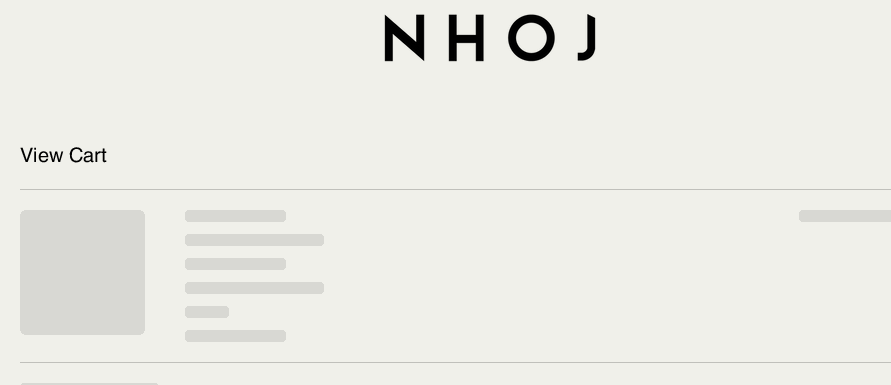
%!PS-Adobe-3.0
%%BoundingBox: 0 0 891 385
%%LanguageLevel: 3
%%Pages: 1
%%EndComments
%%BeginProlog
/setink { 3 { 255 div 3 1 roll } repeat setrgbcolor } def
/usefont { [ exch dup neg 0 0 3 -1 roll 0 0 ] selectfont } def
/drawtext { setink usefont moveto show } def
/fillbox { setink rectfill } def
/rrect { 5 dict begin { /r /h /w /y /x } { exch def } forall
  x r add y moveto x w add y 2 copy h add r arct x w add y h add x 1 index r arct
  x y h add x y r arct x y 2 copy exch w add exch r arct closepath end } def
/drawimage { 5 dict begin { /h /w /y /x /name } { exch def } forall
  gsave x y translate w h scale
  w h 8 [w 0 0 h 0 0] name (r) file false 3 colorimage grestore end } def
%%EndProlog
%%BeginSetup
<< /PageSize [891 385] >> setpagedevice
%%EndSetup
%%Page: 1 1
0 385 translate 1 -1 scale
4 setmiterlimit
0 0 891 385 240 240 234 fillbox
(assets/img1.rgb) 384 14 212 48 drawimage
20 189 871 1 192 192 187 fillbox
(View Cart) 20 162 /helvetica-Regular 20 0 0 0 drawtext
gsave 20 210 125 125 8 rrect clip newpath
<< /ShadingType 2 /ColorSpace /DeviceRGB /Coords [20 273 520 273] /Extend [true true] /Function << /FunctionType 3 /Domain [0 1] /Functions [<< /FunctionType 2 /Domain [0 1] /C0 [0.847 0.847 0.827] /C1 [0.847 0.847 0.827] /N 1 >> << /FunctionType 2 /Domain [0 1] /C0 [0.847 0.847 0.827] /C1 [0.753 0.753 0.733] /N 1 >> << /FunctionType 2 /Domain [0 1] /C0 [0.753 0.753 0.733] /C1 [0.847 0.847 0.827] /N 1 >> << /FunctionType 2 /Domain [0 1] /C0 [0.847 0.847 0.827] /C1 [0.847 0.847 0.827] /N 1 >>] /Bounds [0.25 0.37 0.63] /Encode [0 1 0 1 0 1 0 1] >> >> shfill grestore
gsave 185 210 101 12 6 rrect clip newpath
<< /ShadingType 2 /ColorSpace /DeviceRGB /Coords [185 216 589 216] /Extend [true true] /Function << /FunctionType 3 /Domain [0 1] /Functions [<< /FunctionType 2 /Domain [0 1] /C0 [0.847 0.847 0.827] /C1 [0.847 0.847 0.827] /N 1 >> << /FunctionType 2 /Domain [0 1] /C0 [0.847 0.847 0.827] /C1 [0.753 0.753 0.733] /N 1 >> << /FunctionType 2 /Domain [0 1] /C0 [0.753 0.753 0.733] /C1 [0.847 0.847 0.827] /N 1 >> << /FunctionType 2 /Domain [0 1] /C0 [0.847 0.847 0.827] /C1 [0.847 0.847 0.827] /N 1 >>] /Bounds [0.25 0.37 0.63] /Encode [0 1 0 1 0 1 0 1] >> >> shfill grestore
gsave 185 234 139 12 6 rrect clip newpath
<< /ShadingType 2 /ColorSpace /DeviceRGB /Coords [185 240 741 240] /Extend [true true] /Function << /FunctionType 3 /Domain [0 1] /Functions [<< /FunctionType 2 /Domain [0 1] /C0 [0.847 0.847 0.827] /C1 [0.847 0.847 0.827] /N 1 >> << /FunctionType 2 /Domain [0 1] /C0 [0.847 0.847 0.827] /C1 [0.753 0.753 0.733] /N 1 >> << /FunctionType 2 /Domain [0 1] /C0 [0.753 0.753 0.733] /C1 [0.847 0.847 0.827] /N 1 >> << /FunctionType 2 /Domain [0 1] /C0 [0.847 0.847 0.827] /C1 [0.847 0.847 0.827] /N 1 >>] /Bounds [0.25 0.37 0.63] /Encode [0 1 0 1 0 1 0 1] >> >> shfill grestore
gsave 185 258 101 12 6 rrect clip newpath
<< /ShadingType 2 /ColorSpace /DeviceRGB /Coords [185 264 589 264] /Extend [true true] /Function << /FunctionType 3 /Domain [0 1] /Functions [<< /FunctionType 2 /Domain [0 1] /C0 [0.847 0.847 0.827] /C1 [0.847 0.847 0.827] /N 1 >> << /FunctionType 2 /Domain [0 1] /C0 [0.847 0.847 0.827] /C1 [0.753 0.753 0.733] /N 1 >> << /FunctionType 2 /Domain [0 1] /C0 [0.753 0.753 0.733] /C1 [0.847 0.847 0.827] /N 1 >> << /FunctionType 2 /Domain [0 1] /C0 [0.847 0.847 0.827] /C1 [0.847 0.847 0.827] /N 1 >>] /Bounds [0.25 0.37 0.63] /Encode [0 1 0 1 0 1 0 1] >> >> shfill grestore
gsave 185 282 139 12 6 rrect clip newpath
<< /ShadingType 2 /ColorSpace /DeviceRGB /Coords [185 288 741 288] /Extend [true true] /Function << /FunctionType 3 /Domain [0 1] /Functions [<< /FunctionType 2 /Domain [0 1] /C0 [0.847 0.847 0.827] /C1 [0.847 0.847 0.827] /N 1 >> << /FunctionType 2 /Domain [0 1] /C0 [0.847 0.847 0.827] /C1 [0.753 0.753 0.733] /N 1 >> << /FunctionType 2 /Domain [0 1] /C0 [0.753 0.753 0.733] /C1 [0.847 0.847 0.827] /N 1 >> << /FunctionType 2 /Domain [0 1] /C0 [0.847 0.847 0.827] /C1 [0.847 0.847 0.827] /N 1 >>] /Bounds [0.25 0.37 0.63] /Encode [0 1 0 1 0 1 0 1] >> >> shfill grestore
gsave 185 306 44 12 6 rrect clip newpath
<< /ShadingType 2 /ColorSpace /DeviceRGB /Coords [185 312 361 312] /Extend [true true] /Function << /FunctionType 3 /Domain [0 1] /Functions [<< /FunctionType 2 /Domain [0 1] /C0 [0.847 0.847 0.827] /C1 [0.847 0.847 0.827] /N 1 >> << /FunctionType 2 /Domain [0 1] /C0 [0.847 0.847 0.827] /C1 [0.753 0.753 0.733] /N 1 >> << /FunctionType 2 /Domain [0 1] /C0 [0.753 0.753 0.733] /C1 [0.847 0.847 0.827] /N 1 >> << /FunctionType 2 /Domain [0 1] /C0 [0.847 0.847 0.827] /C1 [0.847 0.847 0.827] /N 1 >>] /Bounds [0.25 0.37 0.63] /Encode [0 1 0 1 0 1 0 1] >> >> shfill grestore
gsave 185 330 101 12 6 rrect clip newpath
<< /ShadingType 2 /ColorSpace /DeviceRGB /Coords [185 336 589 336] /Extend [true true] /Function << /FunctionType 3 /Domain [0 1] /Functions [<< /FunctionType 2 /Domain [0 1] /C0 [0.847 0.847 0.827] /C1 [0.847 0.847 0.827] /N 1 >> << /FunctionType 2 /Domain [0 1] /C0 [0.847 0.847 0.827] /C1 [0.753 0.753 0.733] /N 1 >> << /FunctionType 2 /Domain [0 1] /C0 [0.753 0.753 0.733] /C1 [0.847 0.847 0.827] /N 1 >> << /FunctionType 2 /Domain [0 1] /C0 [0.847 0.847 0.827] /C1 [0.847 0.847 0.827] /N 1 >>] /Bounds [0.25 0.37 0.63] /Encode [0 1 0 1 0 1 0 1] >> >> shfill grestore
gsave 799 210 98 12 6 rrect clip newpath
<< /ShadingType 2 /ColorSpace /DeviceRGB /Coords [799 216 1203 216] /Extend [true true] /Function << /FunctionType 3 /Domain [0 1] /Functions [<< /FunctionType 2 /Domain [0 1] /C0 [0.847 0.847 0.827] /C1 [0.847 0.847 0.827] /N 1 >> << /FunctionType 2 /Domain [0 1] /C0 [0.847 0.847 0.827] /C1 [0.753 0.753 0.733] /N 1 >> << /FunctionType 2 /Domain [0 1] /C0 [0.753 0.753 0.733] /C1 [0.847 0.847 0.827] /N 1 >> << /FunctionType 2 /Domain [0 1] /C0 [0.847 0.847 0.827] /C1 [0.847 0.847 0.827] /N 1 >>] /Bounds [0.25 0.37 0.63] /Encode [0 1 0 1 0 1 0 1] >> >> shfill grestore
20 362 871 1 192 192 187 fillbox
gsave 20 383 139 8 6 rrect clip newpath
<< /ShadingType 2 /ColorSpace /DeviceRGB /Coords [20 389 576 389] /Extend [true true] /Function << /FunctionType 3 /Domain [0 1] /Functions [<< /FunctionType 2 /Domain [0 1] /C0 [0.847 0.847 0.827] /C1 [0.847 0.847 0.827] /N 1 >> << /FunctionType 2 /Domain [0 1] /C0 [0.847 0.847 0.827] /C1 [0.753 0.753 0.733] /N 1 >> << /FunctionType 2 /Domain [0 1] /C0 [0.753 0.753 0.733] /C1 [0.847 0.847 0.827] /N 1 >> << /FunctionType 2 /Domain [0 1] /C0 [0.847 0.847 0.827] /C1 [0.847 0.847 0.827] /N 1 >>] /Bounds [0.25 0.37 0.63] /Encode [0 1 0 1 0 1 0 1] >> >> shfill grestore
showpage
%%EOF
